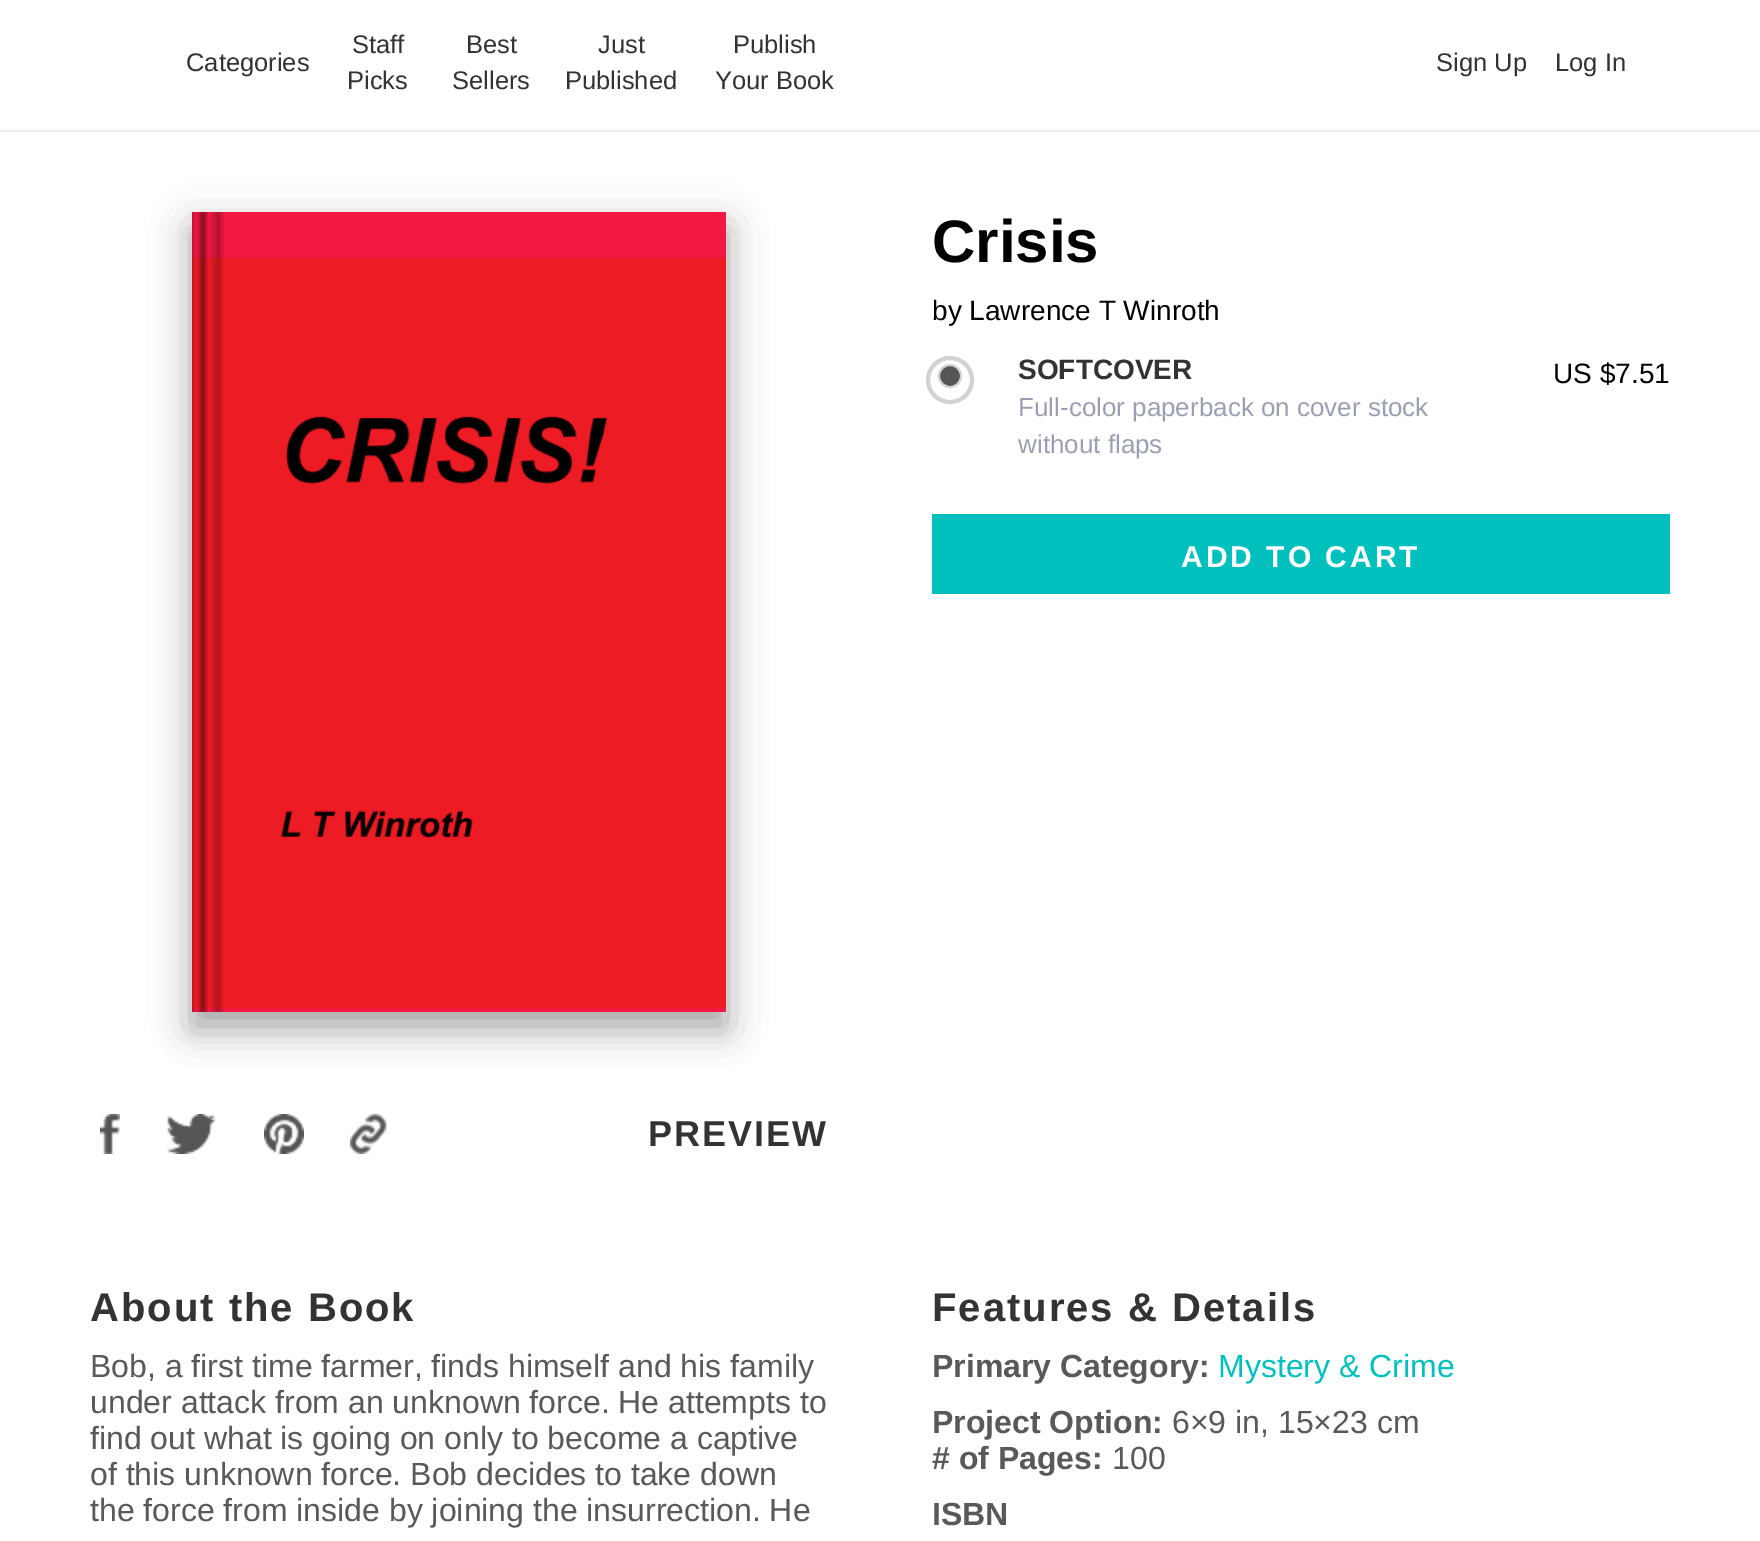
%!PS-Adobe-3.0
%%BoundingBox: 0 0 1760 1541
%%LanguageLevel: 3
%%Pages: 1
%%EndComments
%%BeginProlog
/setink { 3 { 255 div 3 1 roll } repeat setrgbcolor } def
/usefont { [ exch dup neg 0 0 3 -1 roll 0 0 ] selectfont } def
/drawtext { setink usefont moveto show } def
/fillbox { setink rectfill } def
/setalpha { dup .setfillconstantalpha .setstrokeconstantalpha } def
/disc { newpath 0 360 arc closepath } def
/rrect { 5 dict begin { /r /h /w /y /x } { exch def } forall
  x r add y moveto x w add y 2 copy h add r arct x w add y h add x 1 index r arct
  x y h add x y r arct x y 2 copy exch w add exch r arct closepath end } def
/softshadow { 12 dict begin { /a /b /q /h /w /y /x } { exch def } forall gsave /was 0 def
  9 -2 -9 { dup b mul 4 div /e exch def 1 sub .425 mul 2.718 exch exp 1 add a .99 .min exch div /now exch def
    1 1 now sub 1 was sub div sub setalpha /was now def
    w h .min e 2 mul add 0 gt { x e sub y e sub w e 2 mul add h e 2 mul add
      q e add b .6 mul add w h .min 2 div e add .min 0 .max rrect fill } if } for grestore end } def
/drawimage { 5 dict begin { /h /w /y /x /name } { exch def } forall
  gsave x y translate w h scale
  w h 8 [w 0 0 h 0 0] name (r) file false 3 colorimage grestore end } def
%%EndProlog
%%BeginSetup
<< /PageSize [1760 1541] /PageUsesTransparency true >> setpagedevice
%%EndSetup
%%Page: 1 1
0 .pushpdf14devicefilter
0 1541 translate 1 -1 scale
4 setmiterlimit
0 0 1760 1541 255 255 255 fillbox
(Categories) 186 71 /LiberationSans-Regular 25.5 51 51 51 drawtext
(Staff) 352 53 /LiberationSans-Regular 25.5 51 51 51 drawtext
(Picks) 347 89 /LiberationSans-Regular 25.5 51 51 51 drawtext
(Best) 466 53 /LiberationSans-Regular 25.5 51 51 51 drawtext
(Sellers) 452 89 /LiberationSans-Regular 25.5 51 51 51 drawtext
(Just) 598 53 /LiberationSans-Regular 25.5 51 51 51 drawtext
(Published) 565 89 /LiberationSans-Regular 25.5 51 51 51 drawtext
(Publish) 733 53 /LiberationSans-Regular 25.5 51 51 51 drawtext
(Your Book) 715 89 /LiberationSans-Regular 25.5 51 51 51 drawtext
(Sign Up) 1436 71 /LiberationSans-Regular 25.5 51 51 51 drawtext
(Log In) 1555 71 /LiberationSans-Regular 25.5 51 51 51 drawtext
0 130 1760 2 238 238 238 fillbox
(Crisis) 932 262 /LiberationSans-Bold 60 0 0 0 drawtext
(by Lawrence T Winroth) 932 320 /LiberationSans-Regular 28 0 0 0 drawtext
209 211 209 setink
4 setlinewidth
950 380 22 disc stroke
85 85 85 setink
950 376 11 disc gsave fill grestore
209 211 209 setink
2 setlinewidth
stroke
(SOFTCOVER) 1018 379 /LiberationSans-Bold 28 51 51 51 drawtext
(Full-color paperback on cover stock) 1018 416 /LiberationSans-Regular 26 154 159 177 drawtext
(without flaps) 1018 453 /LiberationSans-Regular 26 154 159 177 drawtext
(US $7.51) 1553 383 /LiberationSans-Regular 28 0 0 0 drawtext
932 514 738 80 0 192 190 fillbox
/LiberationSans-Bold 30 usefont
255 255 255 setink
1181 567 moveto 3 0 (ADD TO CART) ashow
0 0 0 setink
192 224 534 800 0 20 0.19 softshadow
192 232 534 800 0 16 0.2 softshadow
(assets/img1.rgb) 192 212 534 800 drawimage
(assets/img2.rgb) 100 1114 20 40 drawimage
(assets/img3.rgb) 166 1114 50 40 drawimage
(assets/img4.rgb) 264 1114 40 40 drawimage
(assets/img5.rgb) 350 1114 37 40 drawimage
/LiberationSans-Bold 36 usefont
51 51 51 setink
648 1146 moveto 2 0 (PREVIEW) ashow
/LiberationSans-Bold 40 usefont
90 1321 moveto 2 0 (About the Book) ashow
(Bob, a first time farmer, finds himself and his family) 90 1377 /LiberationSans-Regular 32 89 89 89 drawtext
(under attack from an unknown force. He attempts to) 90 1413 /LiberationSans-Regular 32 89 89 89 drawtext
(find out what is going on only to become a captive) 90 1449 /LiberationSans-Regular 32 89 89 89 drawtext
(of this unknown force. Bob decides to take down) 90 1485 /LiberationSans-Regular 32 89 89 89 drawtext
(the force from inside by joining the insurrection. He) 90 1521 /LiberationSans-Regular 32 89 89 89 drawtext
/LiberationSans-Bold 40 usefont
51 51 51 setink
932 1321 moveto 2 0 (Features & Details) ashow
(Primary Category:) 932 1377 /LiberationSans-Bold 32 89 89 89 drawtext
(Mystery & Crime) 1218 1377 /LiberationSans-Regular 32 0 192 190 drawtext
(Project Option:) 932 1433 /LiberationSans-Bold 32 89 89 89 drawtext
(6×9 in, 15×23 cm) 1172 1433 /LiberationSans-Regular 32 89 89 89 drawtext
(# of Pages:) 932 1469 /LiberationSans-Bold 32 89 89 89 drawtext
(100) 1112 1469 /LiberationSans-Regular 32 89 89 89 drawtext
(ISBN) 932 1525 /LiberationSans-Bold 32 89 89 89 drawtext
.poppdf14devicefilter showpage
%%EOF
